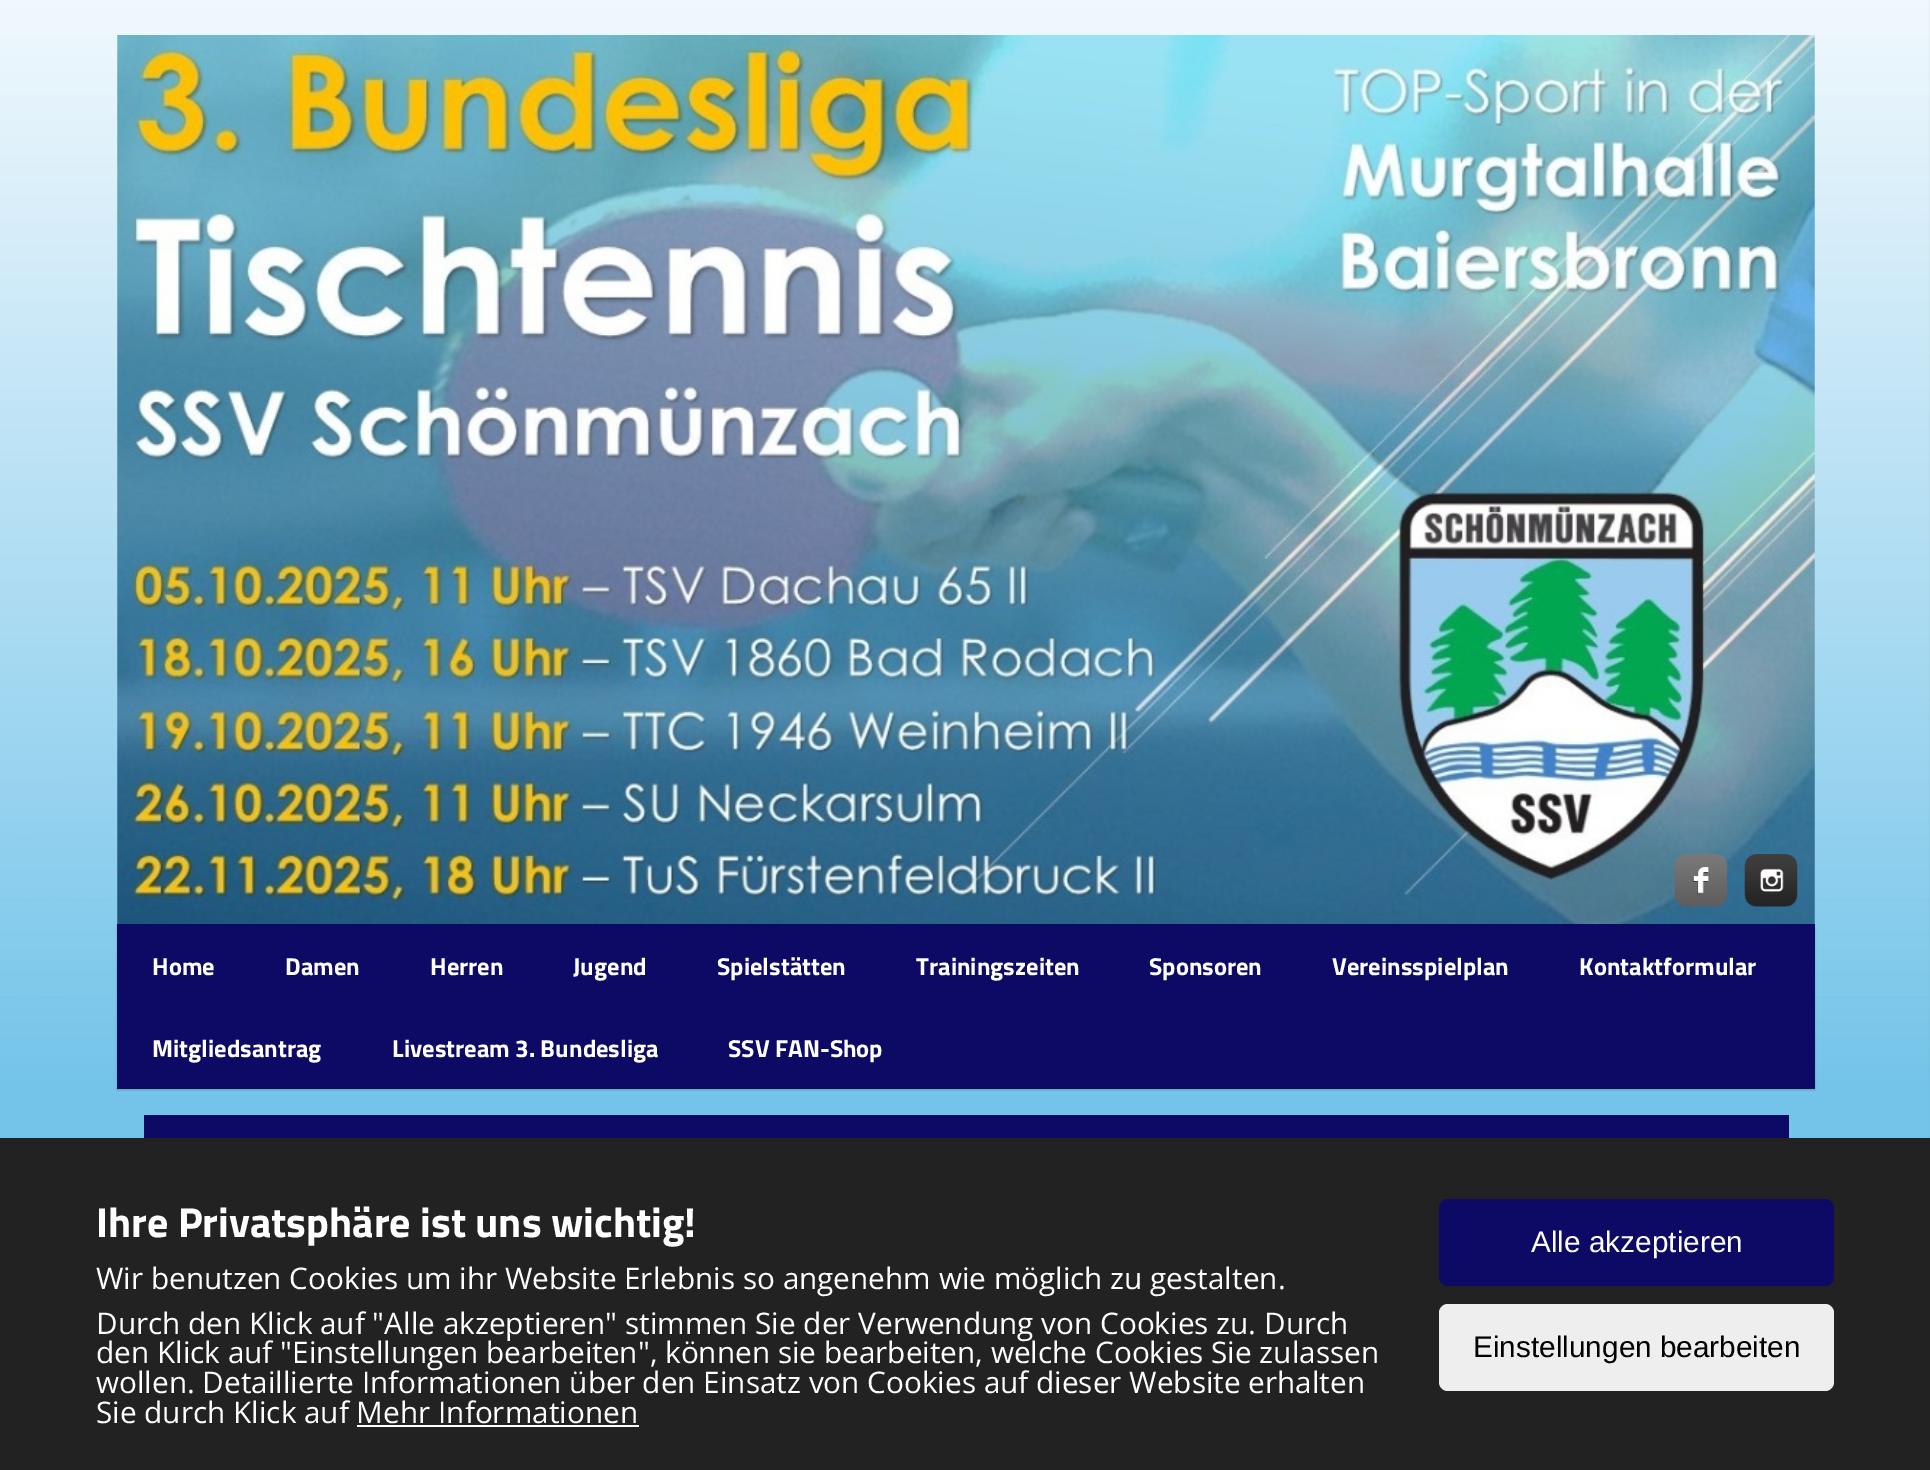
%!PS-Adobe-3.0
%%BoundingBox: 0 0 1930 1470
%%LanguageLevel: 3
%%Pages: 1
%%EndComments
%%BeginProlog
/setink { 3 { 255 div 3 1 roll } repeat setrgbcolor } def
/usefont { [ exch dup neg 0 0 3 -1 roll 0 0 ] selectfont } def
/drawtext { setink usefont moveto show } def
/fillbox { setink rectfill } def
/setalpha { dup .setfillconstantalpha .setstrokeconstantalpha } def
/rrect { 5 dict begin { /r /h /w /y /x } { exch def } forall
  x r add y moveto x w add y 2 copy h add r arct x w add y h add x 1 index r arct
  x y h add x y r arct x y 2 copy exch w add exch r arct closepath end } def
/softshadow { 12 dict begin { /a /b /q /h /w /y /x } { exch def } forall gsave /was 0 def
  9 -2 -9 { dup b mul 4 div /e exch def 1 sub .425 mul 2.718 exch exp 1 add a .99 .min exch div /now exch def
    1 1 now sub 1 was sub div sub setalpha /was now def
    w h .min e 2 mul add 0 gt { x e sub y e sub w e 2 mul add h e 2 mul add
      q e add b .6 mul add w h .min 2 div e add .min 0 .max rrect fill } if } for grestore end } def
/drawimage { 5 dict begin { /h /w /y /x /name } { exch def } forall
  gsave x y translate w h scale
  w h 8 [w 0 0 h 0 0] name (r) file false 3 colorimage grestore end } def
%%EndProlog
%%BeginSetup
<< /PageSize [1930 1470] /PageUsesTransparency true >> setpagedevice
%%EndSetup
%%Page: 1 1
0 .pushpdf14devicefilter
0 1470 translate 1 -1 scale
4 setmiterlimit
0 0 1930 1470 255 255 255 fillbox
(assets/img1.rgb) 0 0 1930 1138 drawimage
(assets/img2.rgb) 117 35 1698 889 drawimage
(assets/img3.rgb) 1674 854 54 53 drawimage
(assets/img4.rgb) 1744 854 54 53 drawimage
0 0 0 setink
117 926 1698 164 0 1 0.2 softshadow
117 924 1698 165 13 10 102 fillbox
(Home) 152 975 /TitilliumWeb-Bold 24.5 255 255 255 drawtext
(Damen) 285 975 /TitilliumWeb-Bold 24.5 255 255 255 drawtext
(Herren) 430 975 /TitilliumWeb-Bold 24.5 255 255 255 drawtext
(Jugend) 573 975 /TitilliumWeb-Bold 24.5 255 255 255 drawtext
(Spielstätten) 717 975 /TitilliumWeb-Bold 24.5 255 255 255 drawtext
(Trainingszeiten) 916 975 /TitilliumWeb-Bold 24.5 255 255 255 drawtext
(Sponsoren) 1149 975 /TitilliumWeb-Bold 24.5 255 255 255 drawtext
(Vereinsspielplan) 1332 975 /TitilliumWeb-Bold 24.5 255 255 255 drawtext
(Kontaktformular) 1579 975 /TitilliumWeb-Bold 24.5 255 255 255 drawtext
(Mitgliedsantrag) 152 1057 /TitilliumWeb-Bold 24.5 255 255 255 drawtext
(Livestream 3. Bundesliga) 392 1057 /TitilliumWeb-Bold 24.5 255 255 255 drawtext
(SSV FAN-Shop) 728 1057 /TitilliumWeb-Bold 24.5 255 255 255 drawtext
144 1115 1645 23 13 10 102 fillbox
0 1138 1930 332 34 34 34 fillbox
(Ihre Privatsphäre ist uns wichtig!) 96 1237 /TitilliumWeb-Bold 42 255 255 255 drawtext
(Wir benutzen Cookies um ihr Website Erlebnis so angenehm wie möglich zu gestalten.) 96 1289 /OpenSans-Regular 29.75 255 255 255 drawtext
(Durch den Klick auf "Alle akzeptieren" stimmen Sie der Verwendung von Cookies zu. Durch) 96 1334 /OpenSans-Regular 29.75 255 255 255 drawtext
(den Klick auf "Einstellungen bearbeiten", können sie bearbeiten, welche Cookies Sie zulassen) 96 1363 /OpenSans-Regular 29.75 255 255 255 drawtext
(wollen. Detaillierte Informationen über den Einsatz von Cookies auf dieser Website erhalten) 96 1393 /OpenSans-Regular 29.75 255 255 255 drawtext
(Sie durch Klick auf Mehr Informationen) 96 1423 /OpenSans-Regular 29.75 255 255 255 drawtext
357 1425 282 2 255 255 255 fillbox
13 10 102 setink
1439 1199 395 87 9 rrect fill
(Alle akzeptieren) 1531 1252 /LiberationSans-Regular 29.75 255 255 255 drawtext
238 238 238 setink
1439 1304 395 87 9 rrect fill
(Einstellungen bearbeiten) 1473 1357 /LiberationSans-Regular 29.75 0 0 0 drawtext
.poppdf14devicefilter showpage
%%EOF
